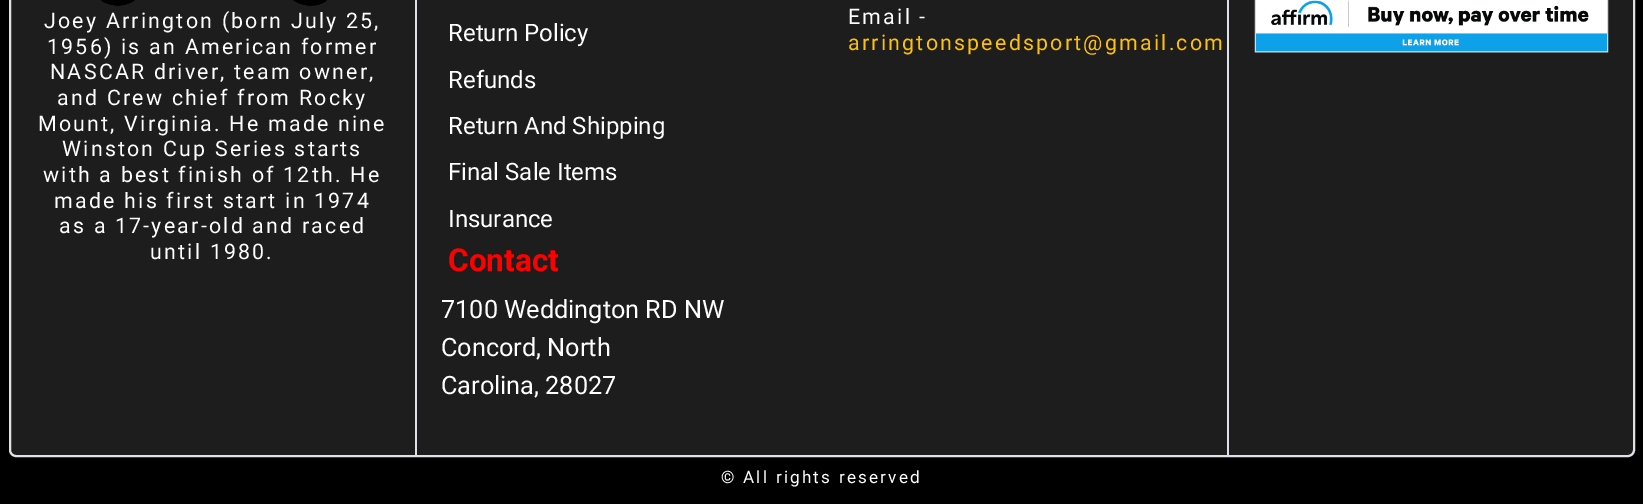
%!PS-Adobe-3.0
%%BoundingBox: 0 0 1643 504
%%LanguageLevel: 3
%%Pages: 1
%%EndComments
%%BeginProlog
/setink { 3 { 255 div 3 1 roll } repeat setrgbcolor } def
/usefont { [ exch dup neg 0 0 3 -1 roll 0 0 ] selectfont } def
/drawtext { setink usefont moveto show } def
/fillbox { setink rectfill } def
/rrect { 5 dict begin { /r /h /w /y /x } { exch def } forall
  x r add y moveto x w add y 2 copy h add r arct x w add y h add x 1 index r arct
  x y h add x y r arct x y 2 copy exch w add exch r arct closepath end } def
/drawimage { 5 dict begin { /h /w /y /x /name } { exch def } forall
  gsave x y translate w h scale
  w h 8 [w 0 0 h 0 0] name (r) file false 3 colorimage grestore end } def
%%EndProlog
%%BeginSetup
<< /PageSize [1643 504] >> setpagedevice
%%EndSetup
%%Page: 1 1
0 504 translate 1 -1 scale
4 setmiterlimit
0 0 1643 504 0 0 0 fillbox
29 29 29 setink
10 -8 1624 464 6 rrect gsave fill grestore
222 226 230 setink
2 setlinewidth
stroke
415 0 2 455 222 226 230 fillbox
(assets/img1.rgb) 101 0 226 6 drawimage
/Roboto-Regular 21.4 usefont
255 255 255 setink
44 28 moveto 2.2 0 (Joey Arrington \(born July 25,) ashow
47 54 moveto 2.2 0 (1956\) is an American former) ashow
50 79 moveto 2.2 0 (NASCAR driver, team owner,) ashow
57 105 moveto 2.2 0 (and Crew chief from Rocky) ashow
38 131 moveto 2.2 0 (Mount, Virginia. He made nine) ashow
62 156 moveto 2.2 0 (Winston Cup Series starts) ashow
43 182 moveto 2.2 0 (with a best finish of 12th. He) ashow
54 208 moveto 2.2 0 (made his first start in 1974) ashow
59 233 moveto 2.2 0 (as a 17-year-old and raced) ashow
150 259 moveto 2.2 0 (until 1980.) ashow
(Return Policy) 448 41 /Roboto-Regular 24 255 255 255 drawtext
(Refunds) 448 88 /Roboto-Regular 24 255 255 255 drawtext
(Return And Shipping) 448 134 /Roboto-Regular 24 255 255 255 drawtext
(Final Sale Items) 448 180 /Roboto-Regular 24 255 255 255 drawtext
(Insurance) 448 227 /Roboto-Regular 24 255 255 255 drawtext
/Roboto-Regular 21.4 usefont
848 24 moveto 2.2 0 (Email -) ashow
255 193 7 setink
848 50 moveto 2.2 0 (arringtonspeedsport@gmail.com) ashow
(Contact) 448 271 /Roboto-Bold 31.5 255 0 0 drawtext
(7100 Weddington RD NW) 441 318 /Roboto-Regular 25.25 255 255 255 drawtext
(Concord, North) 441 356 /Roboto-Regular 25.25 255 255 255 drawtext
(Carolina, 28027) 441 394 /Roboto-Regular 25.25 255 255 255 drawtext
1227 0 2 455 222 226 230 fillbox
(assets/img2.rgb) 1254 0 355 53 drawimage
/Roboto-Regular 17.1 usefont
255 255 255 setink
721 483 moveto 2.2 0 (© All rights reserved) ashow
showpage
%%EOF
